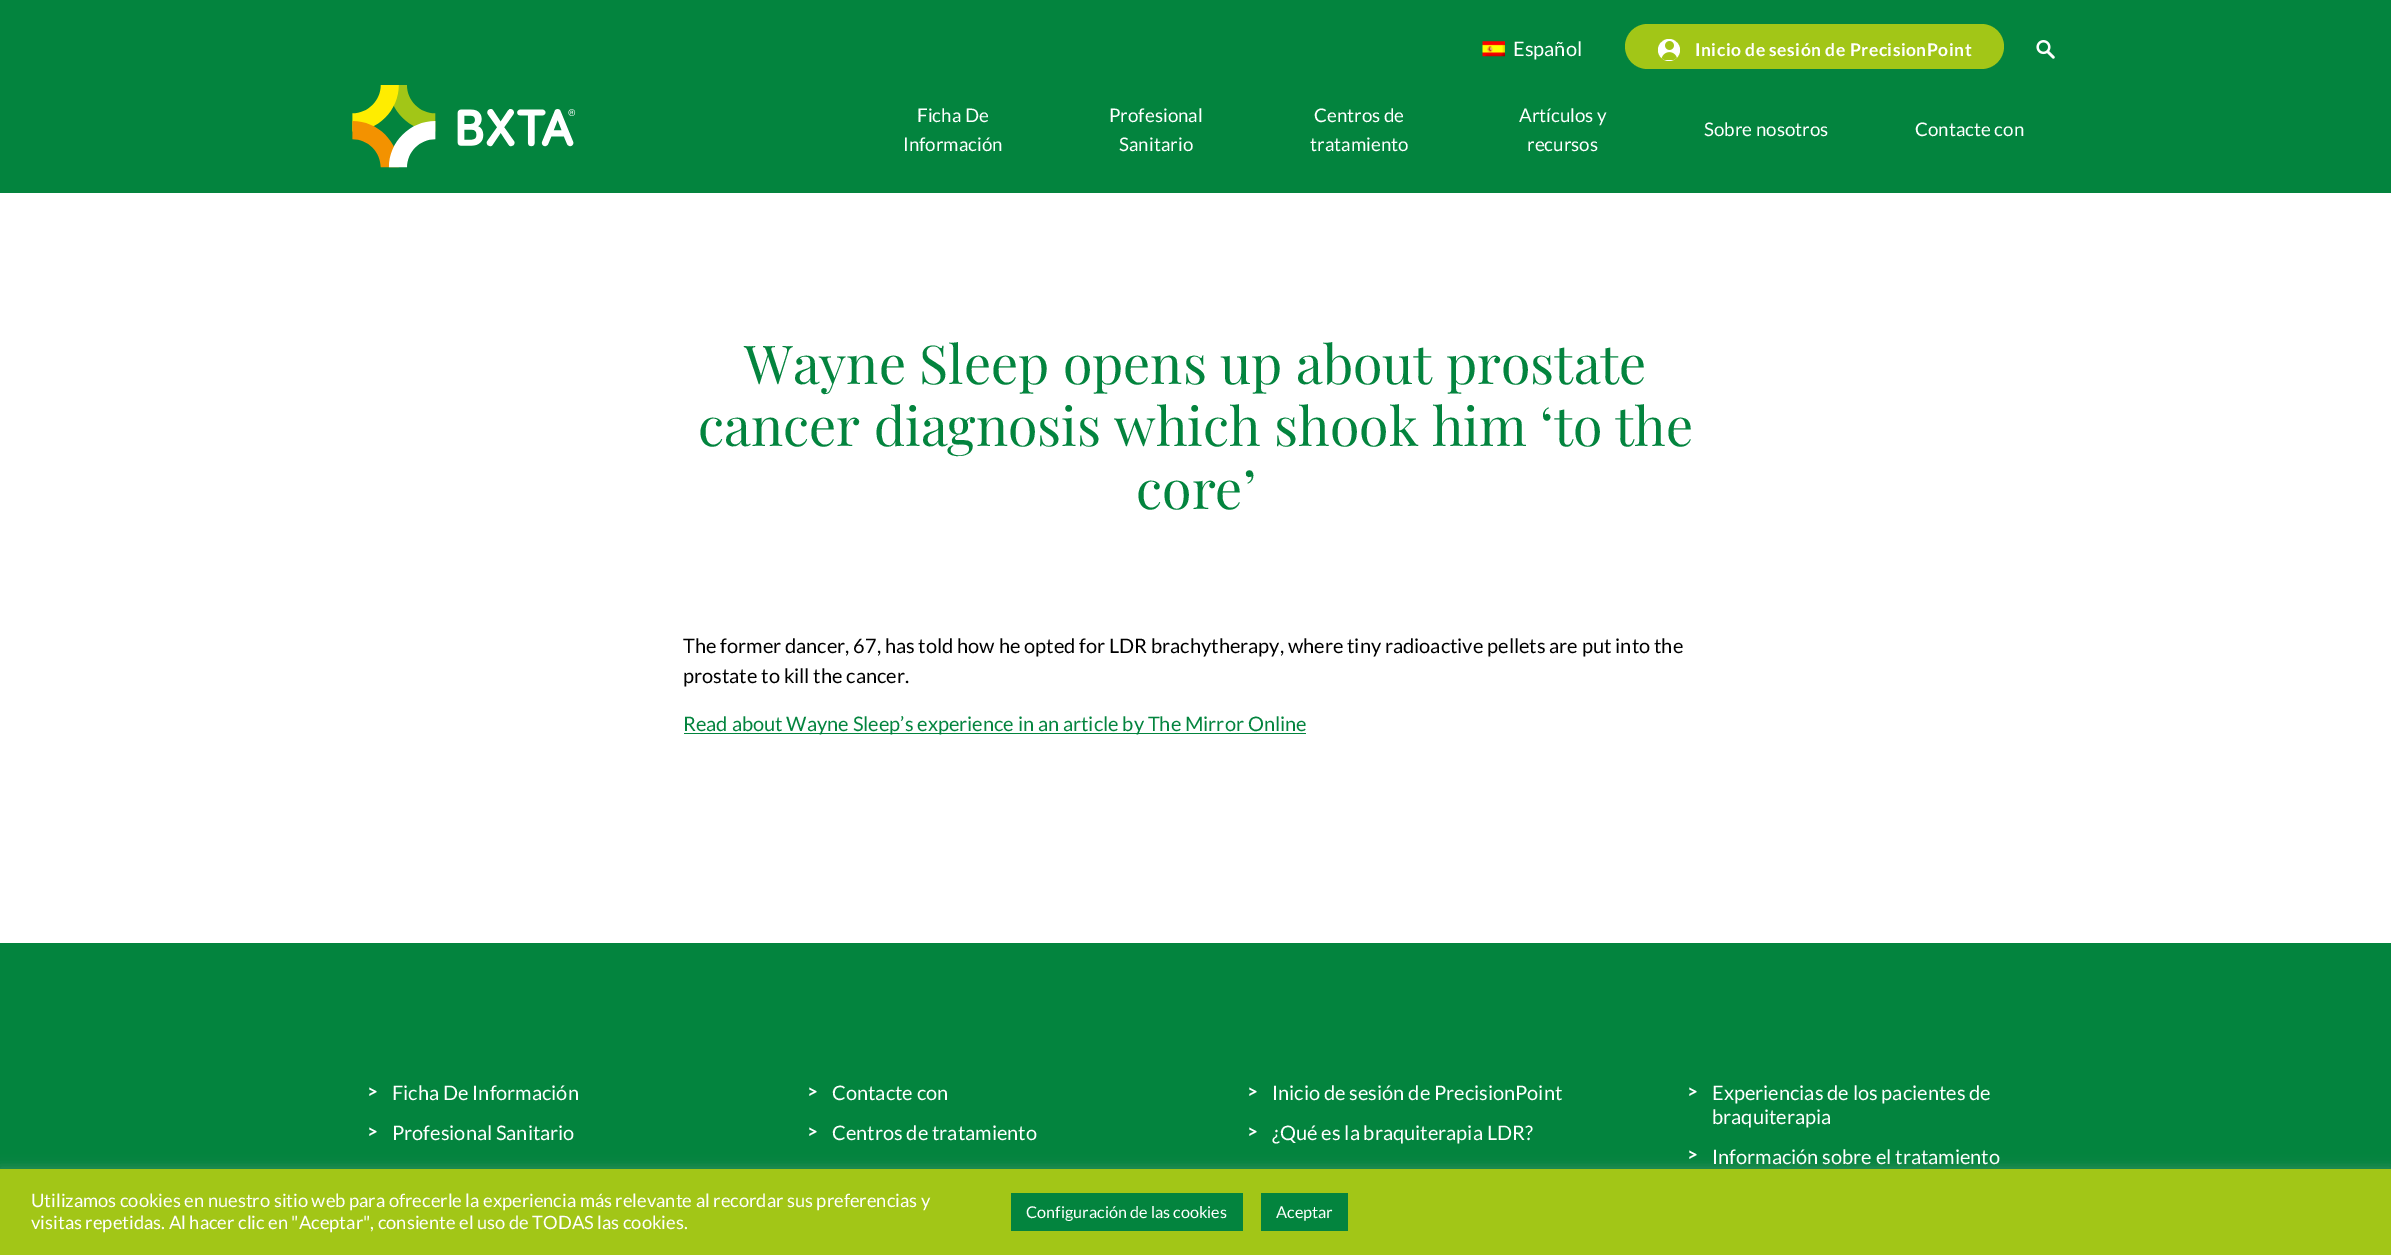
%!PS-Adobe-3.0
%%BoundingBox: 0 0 2391 1255
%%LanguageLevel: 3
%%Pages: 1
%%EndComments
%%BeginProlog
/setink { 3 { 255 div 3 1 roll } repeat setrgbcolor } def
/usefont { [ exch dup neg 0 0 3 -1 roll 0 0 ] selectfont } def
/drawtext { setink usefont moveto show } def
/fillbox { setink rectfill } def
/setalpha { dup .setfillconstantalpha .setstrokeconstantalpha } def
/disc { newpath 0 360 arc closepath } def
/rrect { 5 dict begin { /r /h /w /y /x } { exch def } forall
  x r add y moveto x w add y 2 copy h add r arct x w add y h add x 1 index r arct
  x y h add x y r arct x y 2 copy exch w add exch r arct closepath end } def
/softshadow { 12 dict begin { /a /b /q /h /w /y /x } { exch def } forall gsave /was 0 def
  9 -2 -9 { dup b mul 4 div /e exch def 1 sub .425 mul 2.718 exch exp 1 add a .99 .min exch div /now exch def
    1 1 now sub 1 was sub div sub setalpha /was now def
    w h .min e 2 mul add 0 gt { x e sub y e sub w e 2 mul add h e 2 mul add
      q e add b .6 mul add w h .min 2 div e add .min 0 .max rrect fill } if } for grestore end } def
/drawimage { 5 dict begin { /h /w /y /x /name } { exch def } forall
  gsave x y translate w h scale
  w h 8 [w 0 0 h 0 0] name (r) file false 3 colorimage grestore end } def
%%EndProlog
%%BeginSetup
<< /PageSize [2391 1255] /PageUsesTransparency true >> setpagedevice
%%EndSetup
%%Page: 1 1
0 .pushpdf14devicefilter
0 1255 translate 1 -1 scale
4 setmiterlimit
0 0 2391 1255 255 255 255 fillbox
0 0 2391 193 3 132 62 fillbox
(assets/img1.rgb) 1482 41 23 16 drawimage
(Español) 1513 56 /Lato-Regular 20 255 255 255 drawtext
162 198 23 setink
1625 24 379 45 22.5 rrect fill
255 255 255 setink
1669 50 11 disc fill
(assets/img2.rgb) 1661 41 16 19 drawimage
/Lato-Bold 17.5 usefont
1695 56 moveto 0.5 0 (Inicio de sesión de PrecisionPoint) ashow
(assets/img3.rgb) 2036 40 19 19 drawimage
(assets/img4.rgb) 352 85 224 83 drawimage
(Ficha De) 917 122 /Lato-Regular 18.75 255 255 255 drawtext
(Información) 903 151 /Lato-Regular 18.75 255 255 255 drawtext
(Profesional) 1109 122 /Lato-Regular 18.75 255 255 255 drawtext
(Sanitario) 1119 151 /Lato-Regular 18.75 255 255 255 drawtext
(Centros de) 1314 122 /Lato-Regular 18.75 255 255 255 drawtext
(tratamiento) 1310 151 /Lato-Regular 18.75 255 255 255 drawtext
(Artículos y) 1519 122 /Lato-Regular 18.75 255 255 255 drawtext
(recursos) 1527 151 /Lato-Regular 18.75 255 255 255 drawtext
(Sobre nosotros) 1704 136 /Lato-Regular 18.75 255 255 255 drawtext
(Contacte con) 1915 136 /Lato-Regular 18.75 255 255 255 drawtext
(Wayne Sleep opens up about prostate) 744 384 /PlayfairDisplay-Regular 53.75 3 132 62 drawtext
(cancer diagnosis which shook him ‘to the) 698 446 /PlayfairDisplay-Regular 53.75 3 132 62 drawtext
(core’) 1136 509 /PlayfairDisplay-Regular 53.75 3 132 62 drawtext
(The former dancer, 67, has told how he opted for LDR brachytherapy, where tiny radioactive pellets are put into the) 683 653 /Lato-Regular 20 0 0 0 drawtext
(prostate to kill the cancer.) 683 683 /Lato-Regular 20 0 0 0 drawtext
684 733 622 1 3 132 62 fillbox
(Read about Wayne Sleep’s experience in an article by The Mirror Online) 683 731 /Lato-Regular 20 3 132 62 drawtext
0 943 2391 226 3 132 62 fillbox
(>) 367 1098 /Lato-Bold 18.75 255 255 255 drawtext
(Ficha De Información) 392 1100 /Lato-Regular 20 255 255 255 drawtext
(>) 367 1138 /Lato-Bold 18.75 255 255 255 drawtext
(Profesional Sanitario) 392 1140 /Lato-Regular 20 255 255 255 drawtext
(>) 807 1098 /Lato-Bold 18.75 255 255 255 drawtext
(Contacte con) 832 1100 /Lato-Regular 20 255 255 255 drawtext
(>) 807 1138 /Lato-Bold 18.75 255 255 255 drawtext
(Centros de tratamiento) 832 1140 /Lato-Regular 20 255 255 255 drawtext
(>) 1247 1098 /Lato-Bold 18.75 255 255 255 drawtext
(Inicio de sesión de PrecisionPoint) 1272 1100 /Lato-Regular 20 255 255 255 drawtext
(>) 1247 1138 /Lato-Bold 18.75 255 255 255 drawtext
(¿Qué es la braquiterapia LDR?) 1272 1140 /Lato-Regular 20 255 255 255 drawtext
(>) 1687 1098 /Lato-Bold 18.75 255 255 255 drawtext
(Experiencias de los pacientes de) 1712 1100 /Lato-Regular 20 255 255 255 drawtext
(braquiterapia) 1712 1124 /Lato-Regular 20 255 255 255 drawtext
(>) 1687 1161 /Lato-Bold 18.75 255 255 255 drawtext
(Información sobre el tratamiento) 1712 1164 /Lato-Regular 20 255 255 255 drawtext
172 171 171 setink
0 1168 2391 86 0 6 0.3 softshadow
0 1169 2391 86 162 198 23 fillbox
(Utilizamos cookies en nuestro sitio web para ofrecerle la experiencia más relevante al recordar sus preferencias y) 31 1207 /Lato-Regular 18.35 255 255 255 drawtext
(visitas repetidas. Al hacer clic en "Aceptar", consiente el uso de TODAS las cookies.) 31 1229 /Lato-Regular 18.35 255 255 255 drawtext
1011 1193 232 38 3 132 62 fillbox
(Configuración de las cookies) 1026 1218 /Lato-Regular 16.25 255 255 255 drawtext
1261 1193 87 38 3 132 62 fillbox
(Aceptar) 1276 1218 /Lato-Regular 16.25 255 255 255 drawtext
.poppdf14devicefilter showpage
%%EOF
